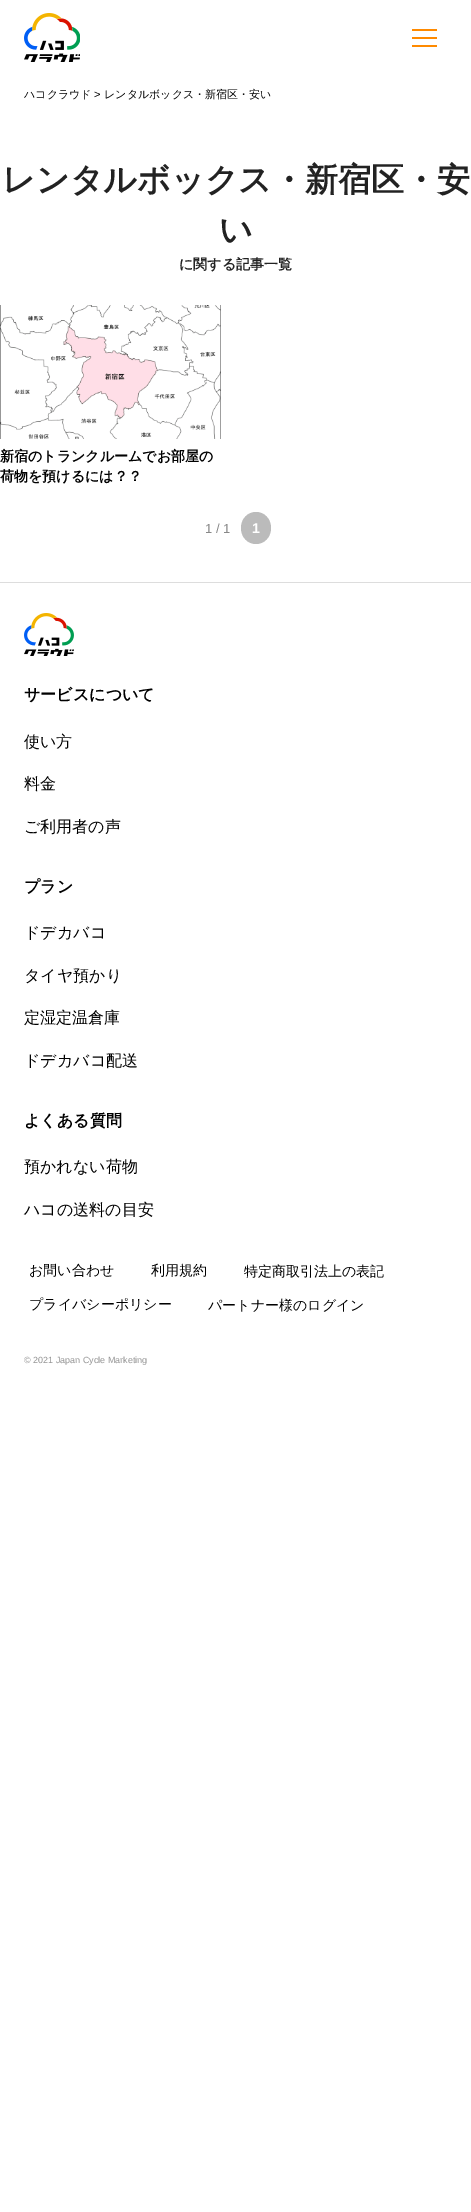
%!PS-Adobe-3.0
%%BoundingBox: 0 0 471 2212
%%LanguageLevel: 3
%%Pages: 1
%%EndComments
%%BeginProlog
/setink { 3 { 255 div 3 1 roll } repeat setrgbcolor } def
/usefont { [ exch dup neg 0 0 3 -1 roll 0 0 ] selectfont } def
/drawtext { setink usefont moveto show } def
/fillbox { setink rectfill } def
/drawimage { 5 dict begin { /h /w /y /x /name } { exch def } forall
  gsave x y translate w h scale
  w h 8 [w 0 0 h 0 0] name (r) file false 3 colorimage grestore end } def
%%EndProlog
%%BeginSetup
<< /PageSize [471 2212] >> setpagedevice
%%EndSetup
%%Page: 1 1
0 2212 translate 1 -1 scale
4 setmiterlimit
0 0 471 2212 255 255 255 fillbox
(assets/img1.rgb) 24 13 56 49 drawimage
412 29 25 2 255 138 0 fillbox
412 37 25 2 255 138 0 fillbox
412 45 25 2 255 138 0 fillbox
(ハコクラウド) 24 98 /WenQuanYiZenHei-Medium 11 0 0 0 drawtext
(>) 94 98 /LiberationSans-Regular 11 0 0 0 drawtext
(レンタルボックス・新宿区・安い) 104 98 /WenQuanYiZenHei-Medium 11 0 0 0 drawtext
(レンタルボックス・新宿区・安) 2 191 /WenQuanYiZenHei-Bold 33 34 34 34 drawtext
(い) 219 241 /WenQuanYiZenHei-Bold 33 34 34 34 drawtext
(に関する記事一覧) 179 269 /WenQuanYiZenHei-Bold 14 34 34 34 drawtext
(assets/img2.rgb) 0 305 221 134 drawimage
(新宿のトランクルームでお部屋の) 0 461 /WenQuanYiZenHei-Bold 14 0 0 0 drawtext
(荷物を預けるには？？) 0 481 /WenQuanYiZenHei-Bold 14 0 0 0 drawtext
(1 / 1) 205 533 /LiberationSans-Regular 13 136 136 136 drawtext
187 187 187 setink
256 512 moveto 264.5 512 271 519 271 528 curveto 271 537 264.5 544 256 544 curveto 247.5 544 241 537 241 528 curveto 241 519 247.5 512 256 512 curveto closepath fill
(1) 252 533 /LiberationSans-Bold 14 255 255 255 drawtext
0 582 471 1 221 221 221 fillbox
(assets/img3.rgb) 24 613 50 43 drawimage
(サービスについて) 24 700 /WenQuanYiZenHei-Bold 16 0 0 0 drawtext
(使い方) 24 747 /WenQuanYiZenHei-Medium 16 0 0 0 drawtext
(料金) 24 789 /WenQuanYiZenHei-Medium 16 0 0 0 drawtext
(ご利用者の声) 24 832 /WenQuanYiZenHei-Medium 16 0 0 0 drawtext
(プラン) 24 892 /WenQuanYiZenHei-Bold 16 0 0 0 drawtext
(ドデカバコ) 24 938 /WenQuanYiZenHei-Medium 16 0 0 0 drawtext
(タイヤ預かり) 24 981 /WenQuanYiZenHei-Medium 16 0 0 0 drawtext
(定湿定温倉庫) 24 1023 /WenQuanYiZenHei-Medium 16 0 0 0 drawtext
(ドデカバコ配送) 24 1066 /WenQuanYiZenHei-Medium 16 0 0 0 drawtext
(よくある質問) 24 1126 /WenQuanYiZenHei-Bold 16 0 0 0 drawtext
(預かれない荷物) 24 1172 /WenQuanYiZenHei-Medium 16 0 0 0 drawtext
(ハコの送料の目安) 24 1215 /WenQuanYiZenHei-Medium 16 0 0 0 drawtext
(お問い合わせ) 29 1275 /WenQuanYiZenHei-Medium 14 0 0 0 drawtext
(利用規約) 151 1275 /WenQuanYiZenHei-Medium 14 0 0 0 drawtext
(特定商取引法上の表記) 244 1276 /WenQuanYiZenHei-Medium 14 0 0 0 drawtext
(プライバシーポリシー) 29 1309 /WenQuanYiZenHei-Medium 14 0 0 0 drawtext
(パートナー様のログイン) 208 1310 /WenQuanYiZenHei-Medium 14 0 0 0 drawtext
(© 2021 Japan Cycle Marketing) 24 1363 /LiberationSans-Regular 9 150 150 150 drawtext
showpage
%%EOF
